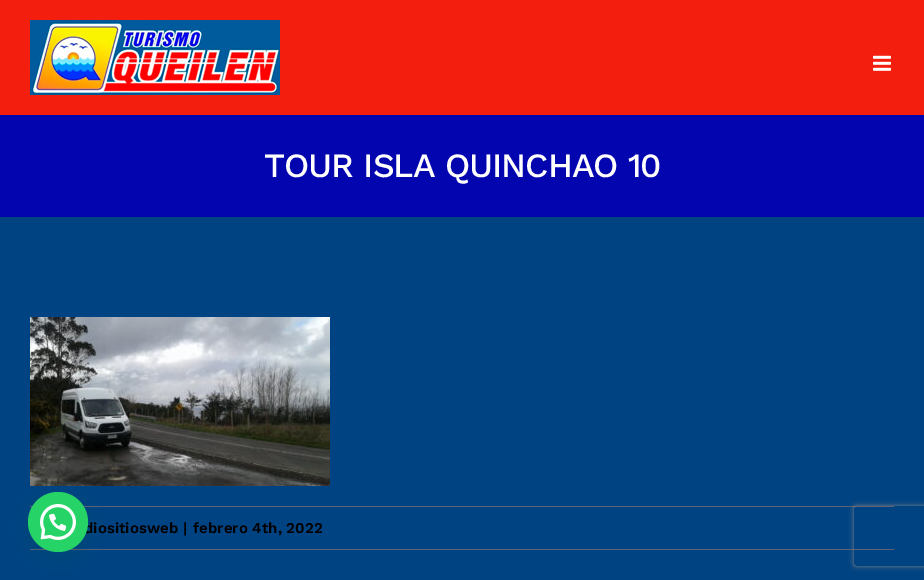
%!PS-Adobe-3.0
%%BoundingBox: 0 0 924 580
%%LanguageLevel: 3
%%Pages: 1
%%EndComments
%%BeginProlog
/setink { 3 { 255 div 3 1 roll } repeat setrgbcolor } def
/usefont { [ exch dup neg 0 0 3 -1 roll 0 0 ] selectfont } def
/drawtext { setink usefont moveto show } def
/fillbox { setink rectfill } def
/setalpha { dup .setfillconstantalpha .setstrokeconstantalpha } def
/disc { newpath 0 360 arc closepath } def
/rrect { 5 dict begin { /r /h /w /y /x } { exch def } forall
  x r add y moveto x w add y 2 copy h add r arct x w add y h add x 1 index r arct
  x y h add x y r arct x y 2 copy exch w add exch r arct closepath end } def
/softshadow { 12 dict begin { /a /b /q /h /w /y /x } { exch def } forall gsave /was 0 def
  9 -2 -9 { dup b mul 4 div /e exch def 1 sub .425 mul 2.718 exch exp 1 add a .99 .min exch div /now exch def
    1 1 now sub 1 was sub div sub setalpha /was now def
    w h .min e 2 mul add 0 gt { x e sub y e sub w e 2 mul add h e 2 mul add
      q e add b .6 mul add w h .min 2 div e add .min 0 .max rrect fill } if } for grestore end } def
/drawimage { 5 dict begin { /h /w /y /x /name } { exch def } forall
  gsave x y translate w h scale
  w h 8 [w 0 0 h 0 0] name (r) file false 3 colorimage grestore end } def
%%EndProlog
%%BeginSetup
<< /PageSize [924 580] /PageUsesTransparency true >> setpagedevice
%%EndSetup
%%Page: 1 1
0 .pushpdf14devicefilter
0 580 translate 1 -1 scale
4 setmiterlimit
0 0 924 580 0 67 130 fillbox
(assets/img4.rgb) 30 317 300 169 drawimage
30 506 864 1 94 98 118 fillbox
30 549 864 1 94 98 118 fillbox
7 94 84 setink
29 498 60 60 30 12 0.24 softshadow
(diositiosweb) 84 533 /WorkSans-SemiBold 15 0 0 0 drawtext
37 211 102 setink
58 522 30 disc fill
(assets/img1.rgb) 40 504 36 36 drawimage
0 0 924 115 244 30 14 fillbox
(assets/img2.rgb) 30 20 250 75 drawimage
(assets/img3.rgb) 873 55 18 16 drawimage
0 115 924 102 3 6 175 fillbox
/WorkSans-Medium 34 usefont
255 255 255 setink
264 177 moveto -1 0 (TOUR ISLA QUINCHAO 10) ashow
(|) 183 533 /WorkSans-SemiBold 15 0 0 0 drawtext
(febrero 4th, 2022) 193 533 /WorkSans-SemiBold 15 0 0 0 drawtext
gsave
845 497 moveto 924 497 lineto 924 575 lineto 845 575 lineto closepath 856 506 moveto 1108 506 lineto 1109 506 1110 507 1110 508 curveto 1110 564 lineto 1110 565 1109 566 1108 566 curveto 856 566 lineto 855 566 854 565 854 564 curveto 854 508 lineto 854 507 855 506 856 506 curveto closepath eoclip newpath
128 128 128 setink
854 506 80 60 2 2.5 1 softshadow
grestore
.poppdf14devicefilter showpage
%%EOF
